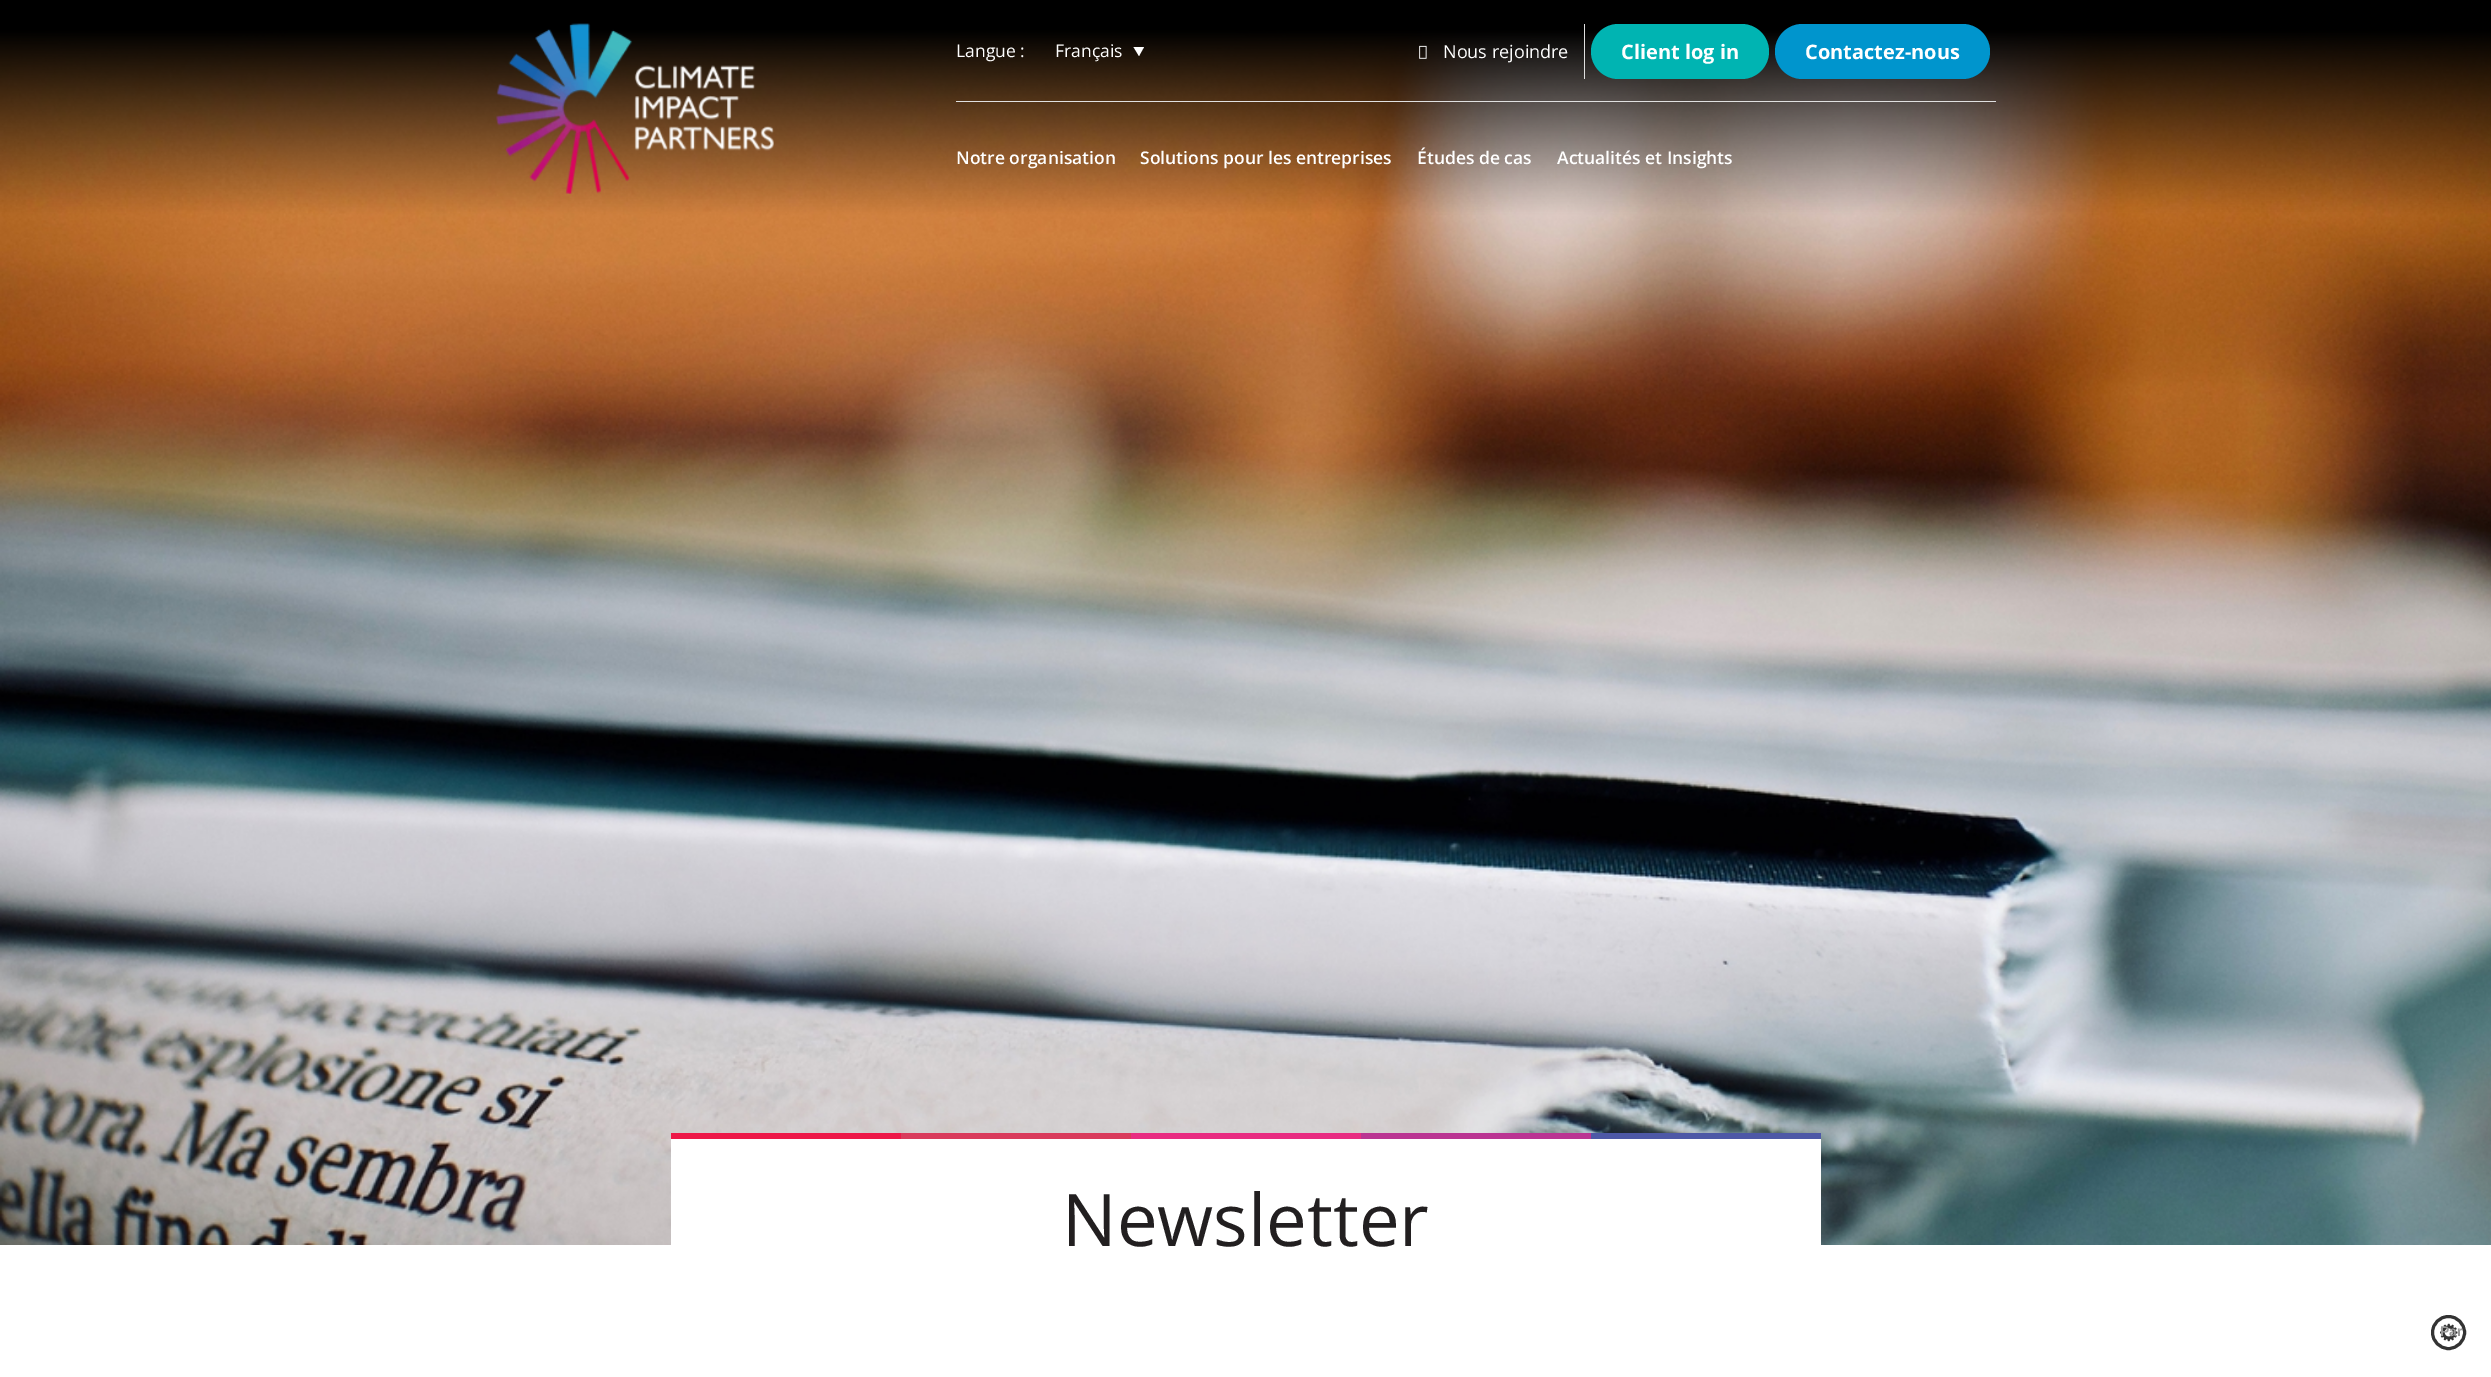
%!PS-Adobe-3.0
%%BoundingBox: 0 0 2491 1377
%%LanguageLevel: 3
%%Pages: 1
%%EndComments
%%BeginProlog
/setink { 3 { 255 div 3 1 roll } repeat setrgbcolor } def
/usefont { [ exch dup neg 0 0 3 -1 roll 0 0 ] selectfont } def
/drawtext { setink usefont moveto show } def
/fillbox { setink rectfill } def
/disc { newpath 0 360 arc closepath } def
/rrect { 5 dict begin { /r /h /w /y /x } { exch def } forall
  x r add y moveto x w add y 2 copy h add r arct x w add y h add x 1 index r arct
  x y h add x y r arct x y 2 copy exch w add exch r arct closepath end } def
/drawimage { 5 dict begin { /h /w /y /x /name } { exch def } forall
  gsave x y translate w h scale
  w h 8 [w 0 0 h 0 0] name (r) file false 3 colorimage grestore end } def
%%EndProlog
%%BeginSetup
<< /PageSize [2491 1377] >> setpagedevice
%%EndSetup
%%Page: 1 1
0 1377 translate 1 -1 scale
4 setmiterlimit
0 0 2491 1377 255 255 255 fillbox
(assets/img3.rgb) 0 0 2491 1245 drawimage
(assets/img1.rgb) 496 23 278 171 drawimage
956 101 1040 1 224 224 224 fillbox
(Langue :) 956 57 /OpenSans-Regular 17.5 255 255 255 drawtext
1139 56 moveto 1133.5 47 lineto 1144 47 lineto closepath fill
(Français) 1055 57 /OpenSans-Regular 17.5 255 255 255 drawtext
1584 24 1 55 224 224 224 fillbox
(assets/img2.rgb) 1419 45 8 14 drawimage
(Nous rejoindre) 1443 58 /OpenSans-Regular 18 255 255 255 drawtext
0 180 178 setink
1591 24 178 55 27.5 rrect fill
(Client log in) 1621 59 /OpenSans-Bold 20 255 255 255 drawtext
0 149 205 setink
1775 24 215 55 27.5 rrect fill
(Contactez-nous) 1805 59 /OpenSans-Bold 20 255 255 255 drawtext
(Notre organisation) 956 164 /OpenSans-SemiBold 17.5 255 255 255 drawtext
(Solutions pour les entreprises) 1140 164 /OpenSans-SemiBold 17.5 255 255 255 drawtext
(Études de cas) 1417 164 /OpenSans-SemiBold 17.5 255 255 255 drawtext
(Actualités et Insights) 1557 164 /OpenSans-SemiBold 17.5 255 255 255 drawtext
671 1139 1150 106 255 255 255 fillbox
671 1133 230 6 237 24 72 fillbox
901 1133 230 6 217 59 92 fillbox
1131 1133 230 6 232 44 129 fillbox
1361 1133 230 6 186 52 146 fillbox
1591 1133 230 6 77 88 166 fillbox
(Newsletter) 1062 1246 /OpenSans-Regular 72.5 34 31 32 drawtext
51 51 51 setink
3 setlinewidth
2448.5 1332.5 16 disc stroke
(assets/img4.rgb) 2440 1323 18 19 drawimage
(Par) 2440 1336 /LiberationSans-Bold 14 152 152 152 drawtext
showpage
%%EOF
